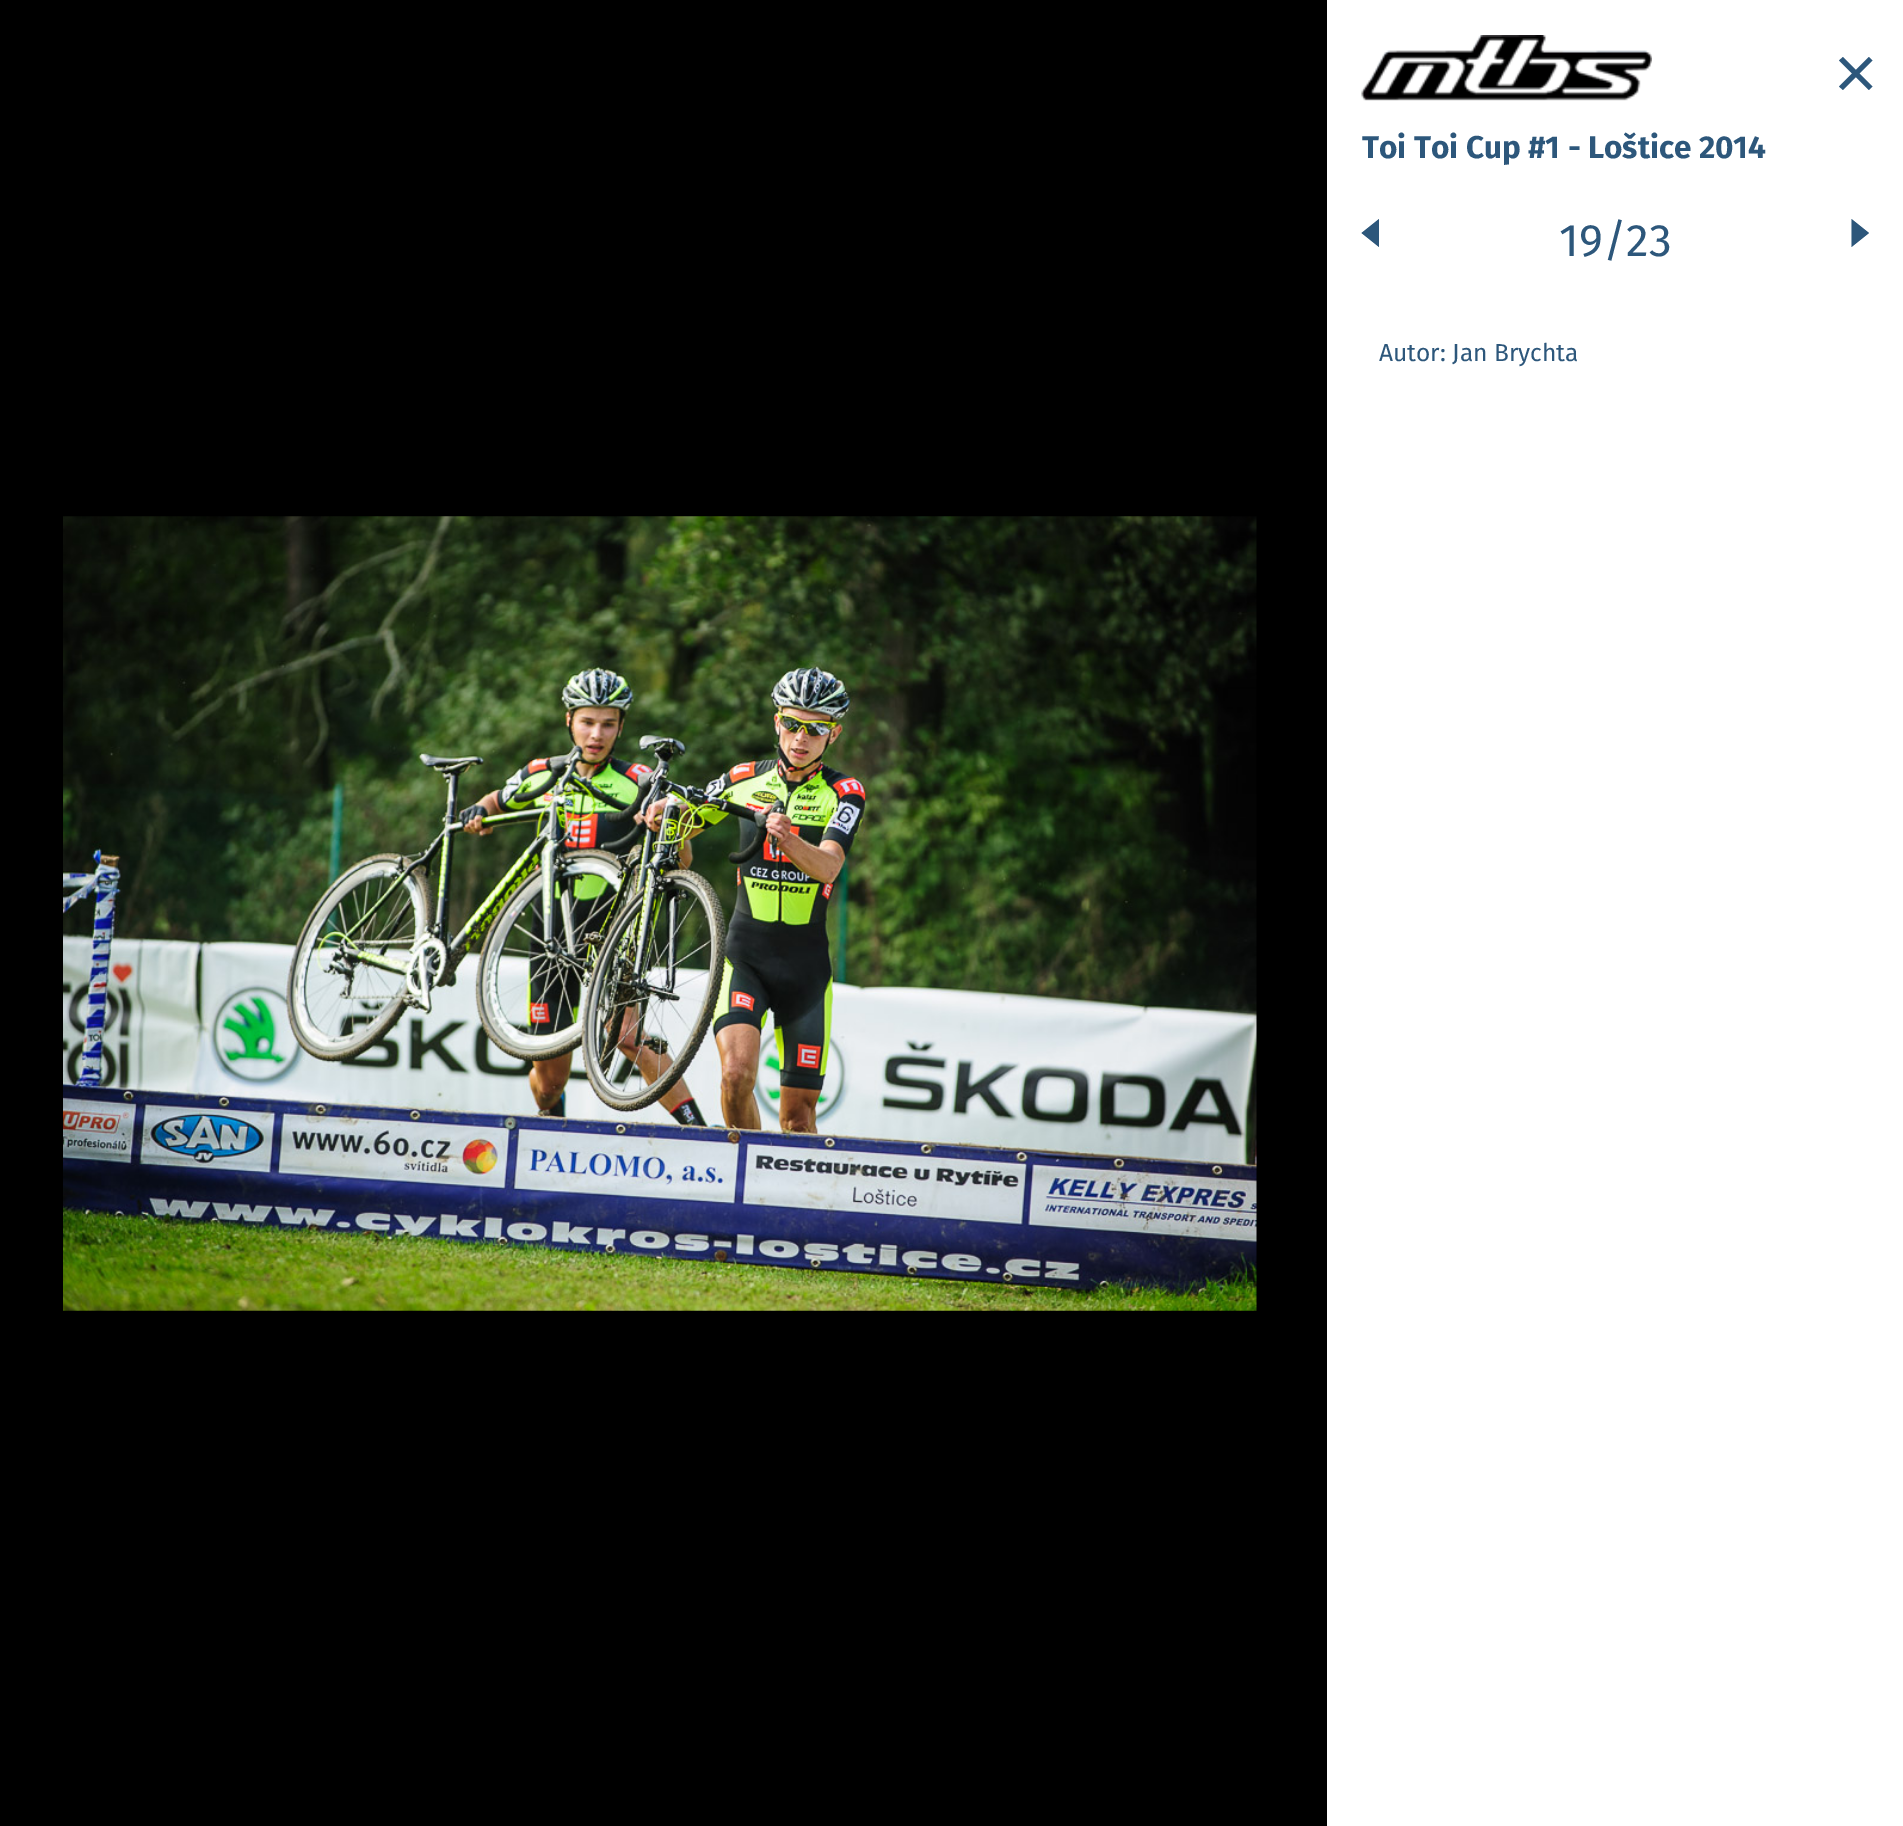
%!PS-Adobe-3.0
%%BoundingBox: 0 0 1903 1826
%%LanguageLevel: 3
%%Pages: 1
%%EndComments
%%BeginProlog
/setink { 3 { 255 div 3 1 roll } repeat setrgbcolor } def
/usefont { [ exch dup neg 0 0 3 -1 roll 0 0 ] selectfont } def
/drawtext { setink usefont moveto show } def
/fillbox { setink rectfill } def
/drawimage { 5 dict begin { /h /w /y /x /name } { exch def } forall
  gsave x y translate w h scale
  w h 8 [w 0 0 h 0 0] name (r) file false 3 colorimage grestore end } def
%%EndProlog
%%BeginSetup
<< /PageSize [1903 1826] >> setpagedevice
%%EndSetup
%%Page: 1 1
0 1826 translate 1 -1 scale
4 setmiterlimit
0 0 1903 1826 0 0 0 fillbox
1327 0 576 1826 255 255 255 fillbox
(assets/img1.rgb) 1361 35 291 66 drawimage
45 87 123 setink
1869 57 moveto 1872.5 60.5 lineto 1843 90 lineto 1839 86.5 lineto closepath fill
1839 60.5 moveto 1843 57 lineto 1872.5 86.5 lineto 1869 90 lineto closepath fill
(Toi Toi Cup #1 - Loštice 2014) 1362 158 /FiraSans-Bold 31.5 45 87 123 drawtext
1379 219 moveto 1379 247 lineto 1361.5 233 lineto closepath fill
(19/23) 1559 256 /FiraSans-Regular 45.5 45 87 123 drawtext
1851.5 247 moveto 1851.5 219 lineto 1869 233 lineto closepath fill
(Autor: Jan Brychta) 1379 361 /FiraSans-Regular 24.5 45 87 123 drawtext
(assets/img2.rgb) 63 516 1194 795 drawimage
showpage
%%EOF
